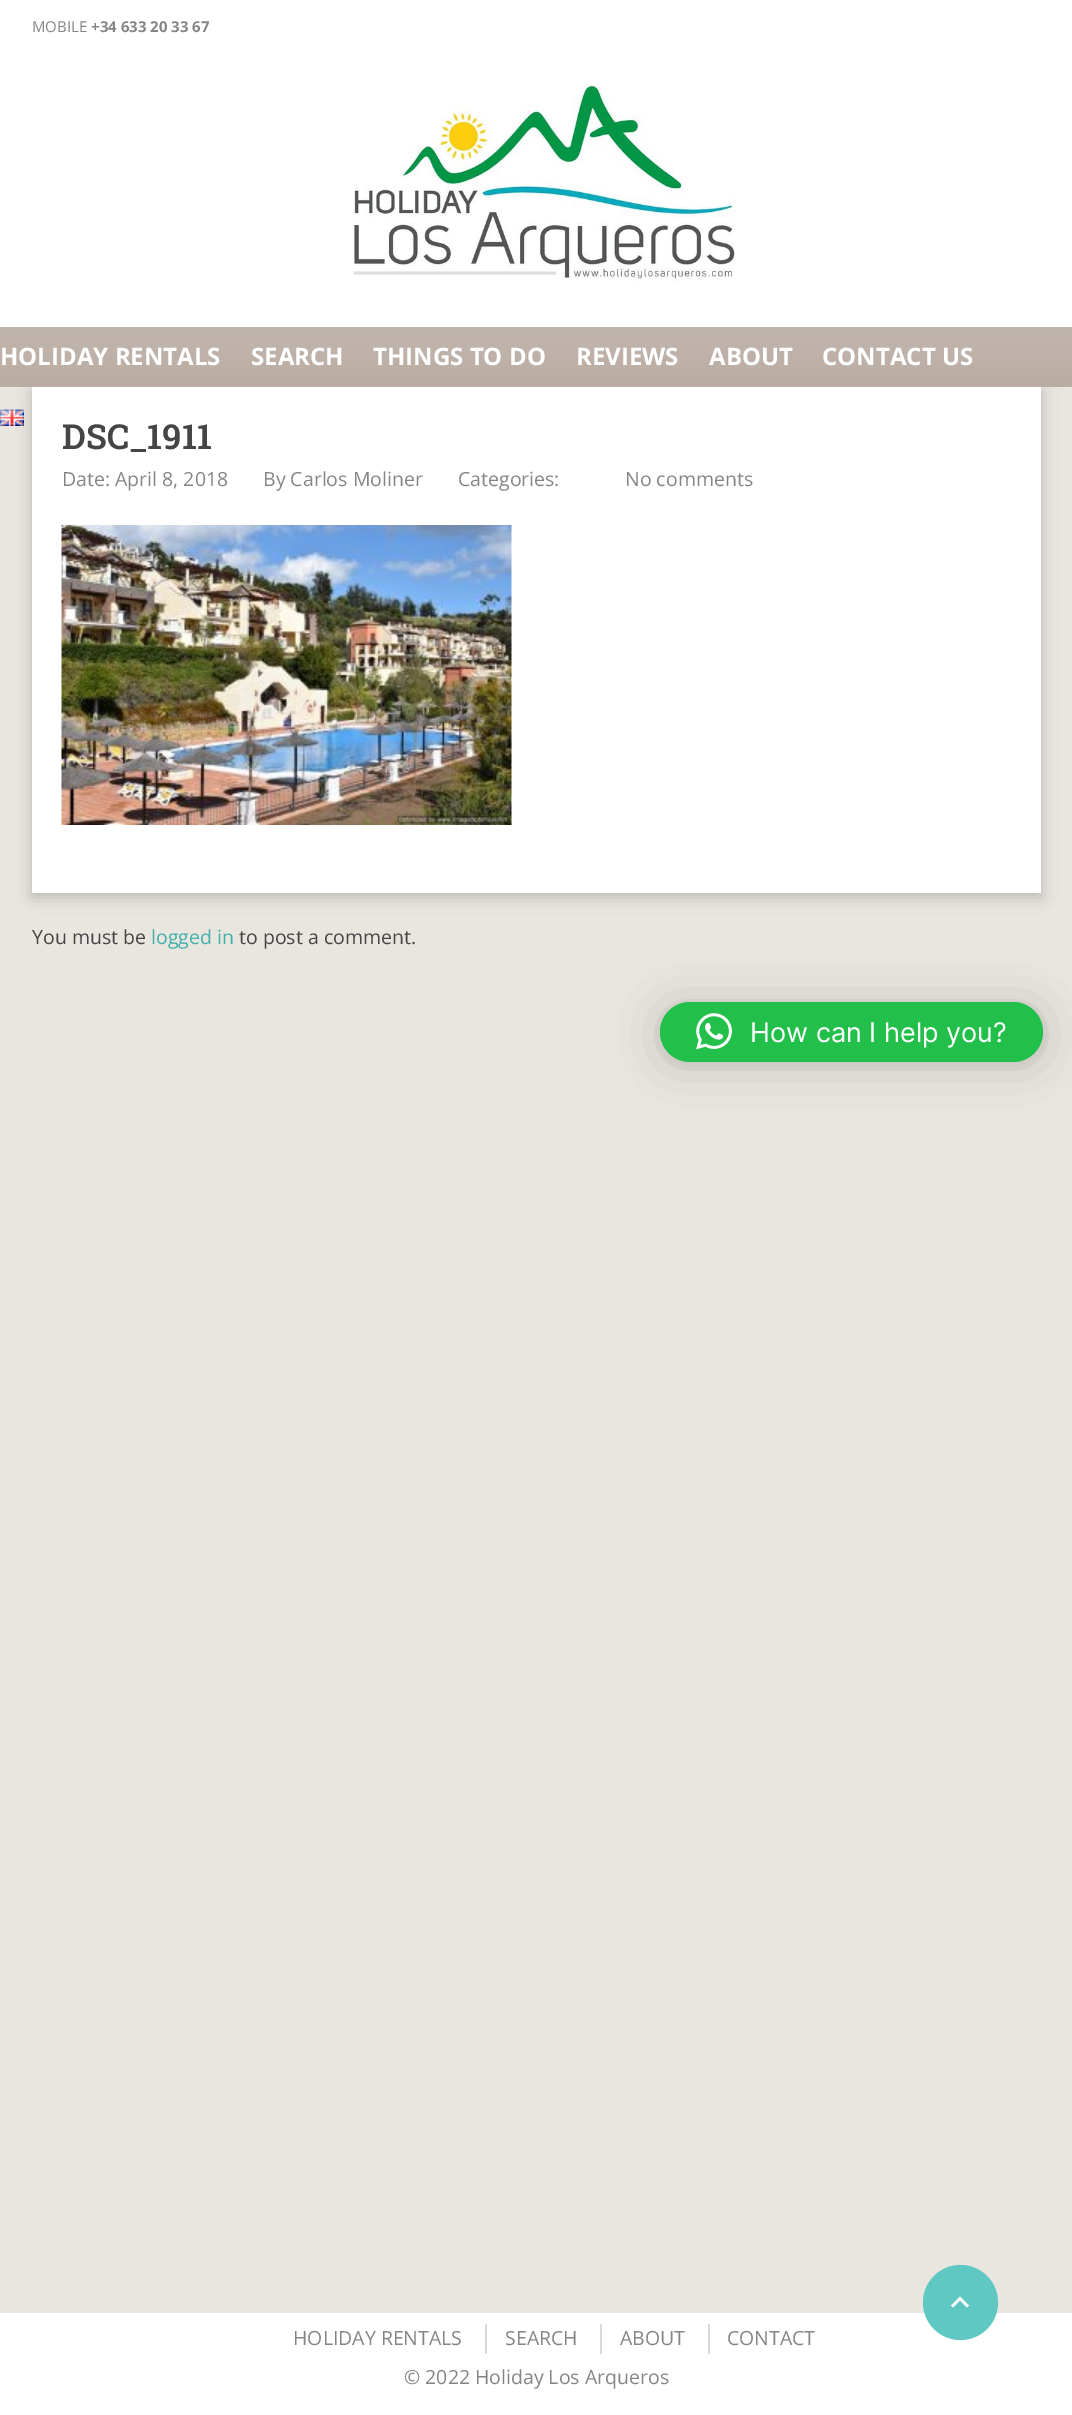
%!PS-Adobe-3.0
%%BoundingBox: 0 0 1072 2415
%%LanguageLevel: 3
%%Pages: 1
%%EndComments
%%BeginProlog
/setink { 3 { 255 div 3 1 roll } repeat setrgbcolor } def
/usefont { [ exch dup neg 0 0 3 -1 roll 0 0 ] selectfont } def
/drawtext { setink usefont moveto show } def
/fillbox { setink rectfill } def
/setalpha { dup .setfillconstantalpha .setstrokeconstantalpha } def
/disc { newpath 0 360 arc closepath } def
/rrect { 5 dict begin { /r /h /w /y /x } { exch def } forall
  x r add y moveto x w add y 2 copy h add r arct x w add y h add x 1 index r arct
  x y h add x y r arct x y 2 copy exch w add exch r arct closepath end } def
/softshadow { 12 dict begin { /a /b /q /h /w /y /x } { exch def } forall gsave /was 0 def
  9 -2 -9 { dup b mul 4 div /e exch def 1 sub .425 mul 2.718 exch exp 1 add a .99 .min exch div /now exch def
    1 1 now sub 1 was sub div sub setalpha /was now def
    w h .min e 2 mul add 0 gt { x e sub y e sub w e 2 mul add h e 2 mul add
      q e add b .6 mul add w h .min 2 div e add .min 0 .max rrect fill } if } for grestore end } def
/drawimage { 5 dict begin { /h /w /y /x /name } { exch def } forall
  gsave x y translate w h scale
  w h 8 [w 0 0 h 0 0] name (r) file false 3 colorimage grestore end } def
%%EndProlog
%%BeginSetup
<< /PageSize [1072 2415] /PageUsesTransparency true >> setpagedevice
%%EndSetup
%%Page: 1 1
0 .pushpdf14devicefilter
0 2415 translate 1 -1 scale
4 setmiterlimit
0 0 1072 2415 233 230 224 fillbox
0 0 1072 327 255 255 255 fillbox
(MOBILE) 32 32 /OpenSans-Regular 15 133 133 133 drawtext
(+34 633 20 33 67) 91 32 /OpenSans-Bold 15 133 133 133 drawtext
(assets/img1.rgb) 352 84 383 199 drawimage
0 0 0 setink
32 392 1009 505 0 7.5 0.2 softshadow
gsave 0 327 moveto 1072 327 lineto 1072 387 lineto 0 387 lineto closepath clip newpath
<< /ShadingType 2 /ColorSpace /DeviceRGB /Coords [536 327 536 387] /Extend [true true] /Function << /FunctionType 2 /Domain [0 1] /C0 [0.757 0.714 0.682] /C1 [0.729 0.675 0.639] /N 1 >> >> shfill grestore
(HOLIDAY RENTALS) 0 365 /OpenSans-Bold 24 255 255 255 drawtext
(SEARCH) 251 365 /OpenSans-Bold 24 255 255 255 drawtext
(THINGS TO DO) 373 365 /OpenSans-Bold 24 255 255 255 drawtext
(REVIEWS) 576 365 /OpenSans-Bold 24 255 255 255 drawtext
(ABOUT) 709 365 /OpenSans-Bold 24 255 255 255 drawtext
(CONTACT US) 822 365 /OpenSans-Bold 24 255 255 255 drawtext
(assets/img2.rgb) 0 409 24 17 drawimage
32 387 1009 506 255 255 255 fillbox
(DSC_1911) 62 449 /RobotoSlab-SemiBold 34.5 69 69 69 drawtext
(Date: April 8, 2018) 62 486 /OpenSans-Regular 19.5 133 133 133 drawtext
(By Carlos Moliner) 263 486 /OpenSans-Regular 19.5 133 133 133 drawtext
(Categories:) 458 486 /OpenSans-Regular 19.5 133 133 133 drawtext
(No comments) 625 486 /OpenSans-Regular 19.5 133 133 133 drawtext
(assets/img3.rgb) 61 525 451 300 drawimage
(You must be) 32 944 /OpenSans-Regular 19.5 69 69 69 drawtext
(logged in) 151 944 /OpenSans-Regular 19.5 65 175 170 drawtext
(to post a comment.) 239 944 /OpenSans-Regular 19.5 69 69 69 drawtext
0 2313 1072 102 255 255 255 fillbox
95 200 194 setink
960.5 2302.5 37.5 disc fill
255 255 255 setink
953 2307.5 moveto 951 2305.5 lineto 960 2296.5 lineto 969 2305.5 lineto 967 2307.5 lineto 960 2300.5 lineto closepath fill
(HOLIDAY RENTALS) 293 2345 /OpenSans-Regular 19.5 133 133 133 drawtext
485 2324 2 30 217 217 217 fillbox
(SEARCH) 505 2345 /OpenSans-Regular 19.5 133 133 133 drawtext
600 2324 2 30 217 217 217 fillbox
(ABOUT) 620 2345 /OpenSans-Regular 19.5 133 133 133 drawtext
708 2324 2 30 217 217 217 fillbox
(CONTACT) 727 2345 /OpenSans-Regular 19.5 133 133 133 drawtext
(© 2022 Holiday Los Arqueros) 404 2384 /OpenSans-Regular 19.5 133 133 133 drawtext
0 0 0 setink
660 1005 383 60 30 24 0.16 softshadow
660 1004 383 60 30 4.5 0.06 softshadow
34 191 74 setink
660 1002 383 60 30 rrect fill
(assets/img4.rgb) 696 1013 36 37 drawimage
(How can I help you?) 750 1042 /Inter-Regular 27 255 255 255 drawtext
.poppdf14devicefilter showpage
%%EOF
